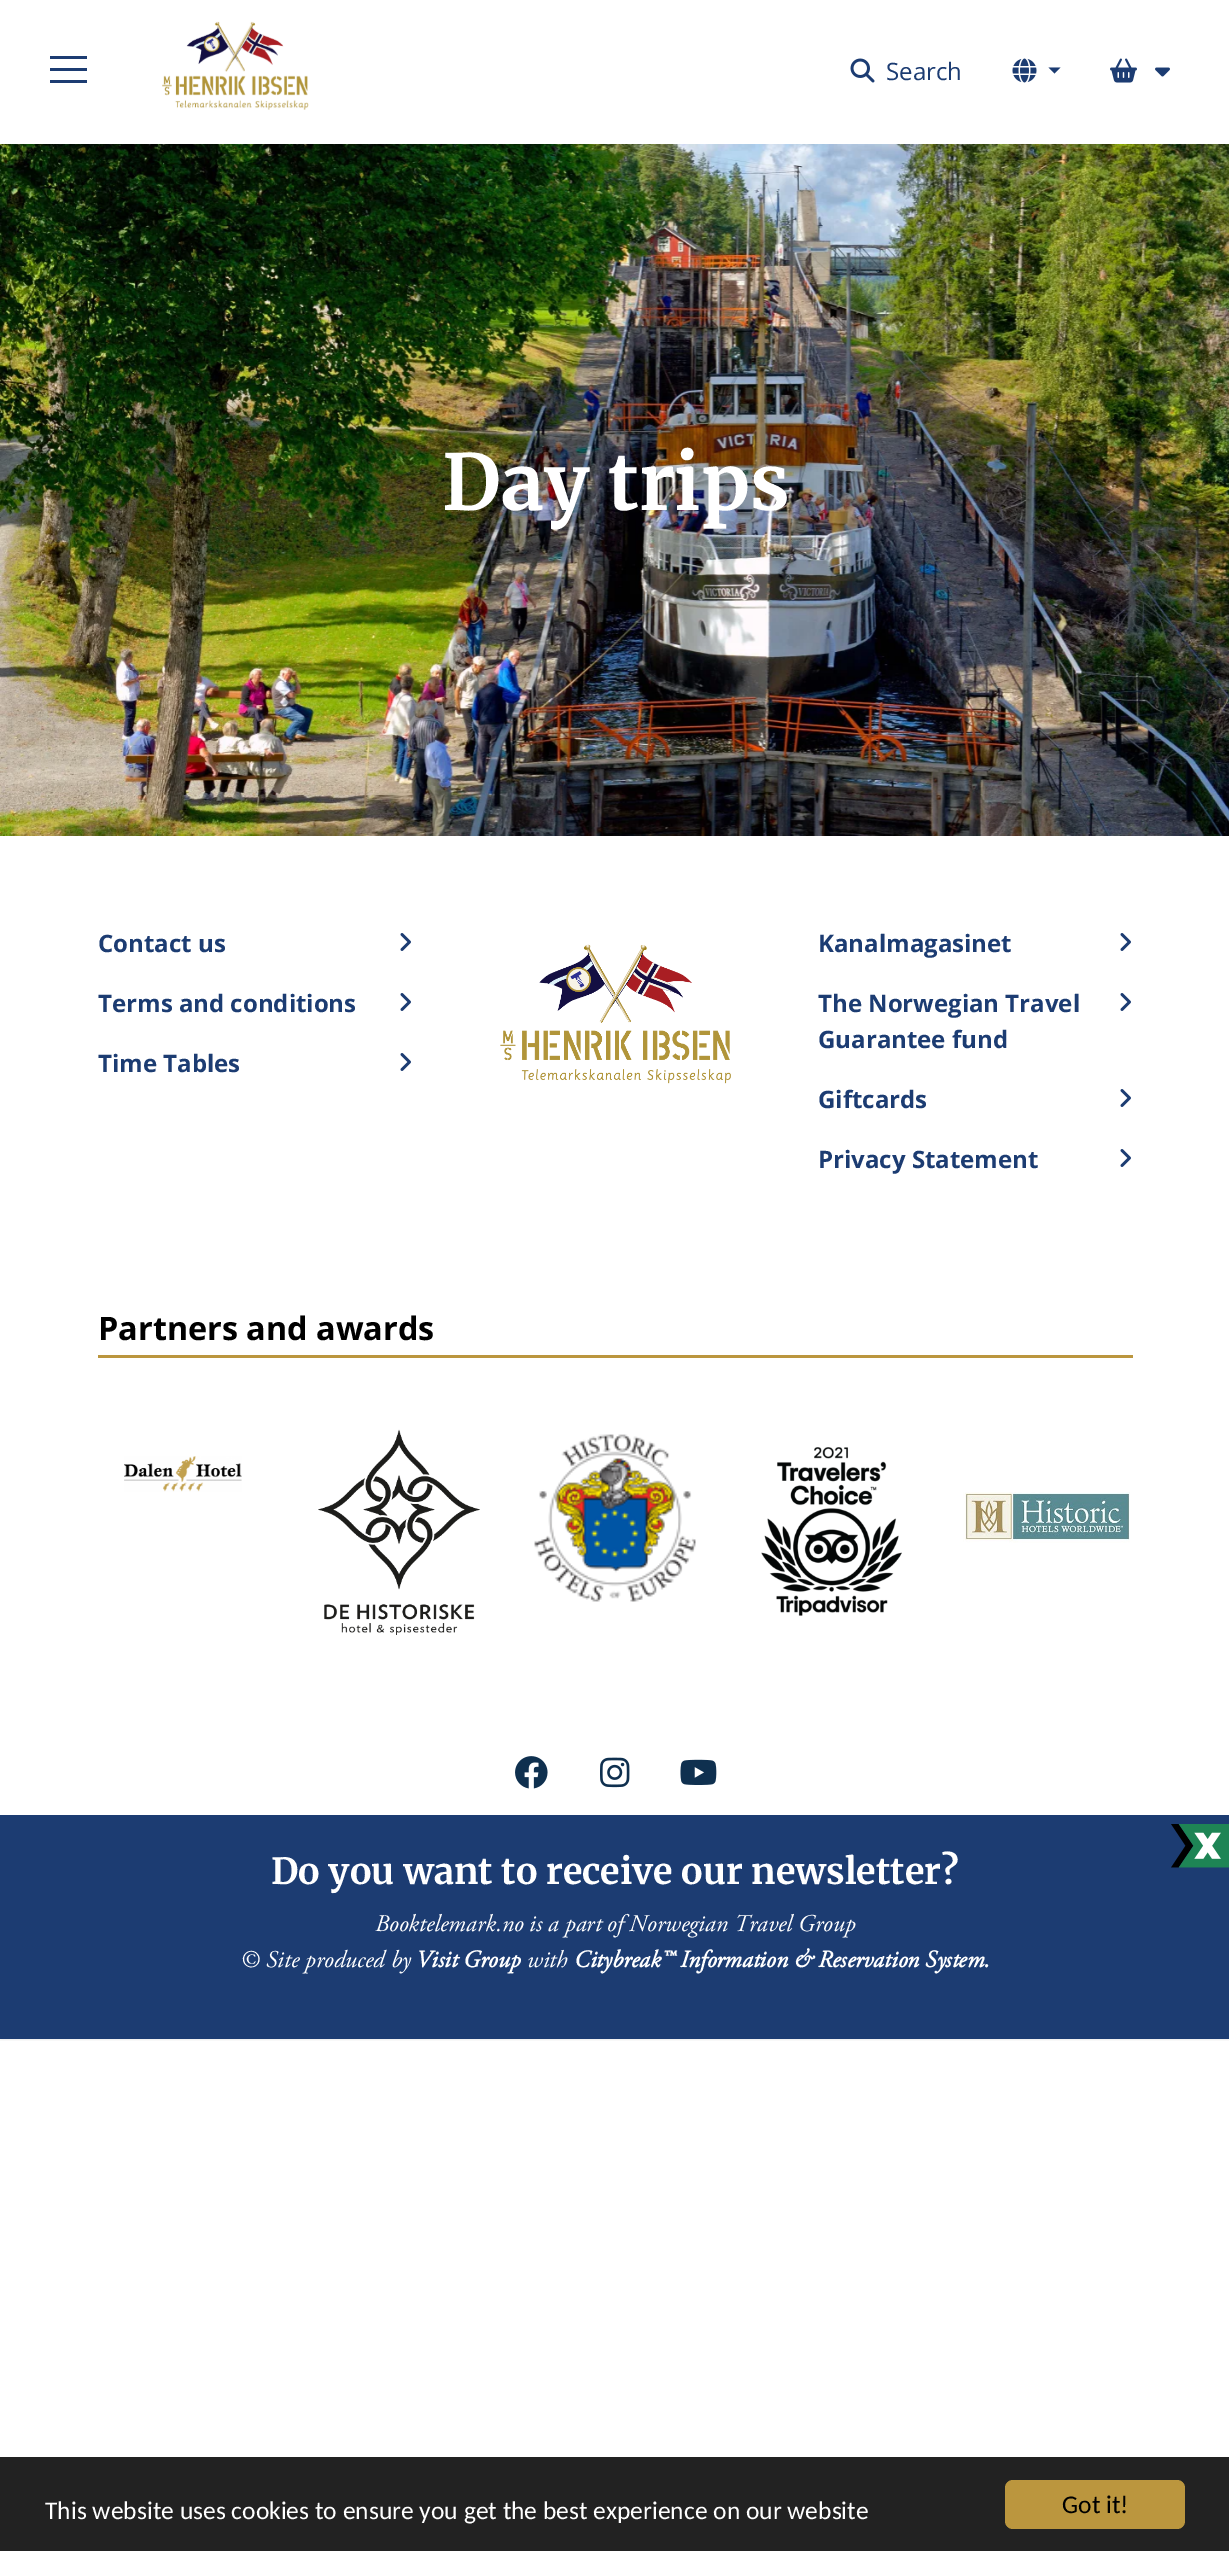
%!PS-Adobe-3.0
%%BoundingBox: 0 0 1229 2551
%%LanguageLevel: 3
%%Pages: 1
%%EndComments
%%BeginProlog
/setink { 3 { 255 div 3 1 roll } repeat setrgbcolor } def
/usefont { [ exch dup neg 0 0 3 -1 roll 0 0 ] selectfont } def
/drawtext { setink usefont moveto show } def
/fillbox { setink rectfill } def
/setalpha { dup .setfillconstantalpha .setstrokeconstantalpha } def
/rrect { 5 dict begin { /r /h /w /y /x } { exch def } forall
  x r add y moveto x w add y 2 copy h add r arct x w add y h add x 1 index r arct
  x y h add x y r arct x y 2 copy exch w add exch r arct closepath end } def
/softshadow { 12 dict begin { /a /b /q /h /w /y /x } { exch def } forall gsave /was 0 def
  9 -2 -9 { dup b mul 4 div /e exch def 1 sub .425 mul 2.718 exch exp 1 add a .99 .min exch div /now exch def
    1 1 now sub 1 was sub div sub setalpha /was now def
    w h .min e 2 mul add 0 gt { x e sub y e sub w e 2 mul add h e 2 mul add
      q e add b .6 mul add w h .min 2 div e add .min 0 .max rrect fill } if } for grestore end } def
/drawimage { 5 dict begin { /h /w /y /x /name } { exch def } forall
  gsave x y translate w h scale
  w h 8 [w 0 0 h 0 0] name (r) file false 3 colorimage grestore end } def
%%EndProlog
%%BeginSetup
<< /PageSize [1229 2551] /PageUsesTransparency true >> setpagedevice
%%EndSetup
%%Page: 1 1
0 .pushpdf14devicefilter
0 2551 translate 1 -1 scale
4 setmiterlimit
0 0 1229 2551 255 255 255 fillbox
50 56 37 3 28 60 114 fillbox
50 68 37 3 28 60 114 fillbox
50 80 37 3 28 60 114 fillbox
(assets/img1.rgb) 162 21 147 89 drawimage
(assets/img2.rgb) 850 58 25 25 drawimage
(Search) 886 80 /OpenSans-Regular 24 28 60 114 drawtext
(assets/img3.rgb) 1012 58 25 25 drawimage
1048.5 67.5 moveto 1060.5 67.5 lineto 1054.5 73.5 lineto closepath fill
(assets/img4.rgb) 1110 58 27 25 drawimage
(assets/img5.rgb) 1155 67 15 10 drawimage
gsave
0 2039 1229 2 rectclip
0 0 0 setink
0 831 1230 1203 0 4.5 0.4 softshadow
grestore
(assets/img6.rgb) 0 144 1229 692 drawimage
(Day trips) 442 510 /Merriweather-Bold 77 255 255 255 drawtext
(Contact us) 98 952 /OpenSans-Bold 24 28 60 114 drawtext
(assets/img7.rgb) 400 933 11 18 drawimage
(Terms and conditions) 98 1012 /OpenSans-Bold 24 28 60 114 drawtext
(assets/img7.rgb) 400 993 11 18 drawimage
(Time Tables) 98 1072 /OpenSans-Bold 24 28 60 114 drawtext
(assets/img7.rgb) 400 1053 11 18 drawimage
(assets/img8.rgb) 500 944 231 140 drawimage
(Kanalmagasinet) 818 952 /OpenSans-Bold 24 28 60 114 drawtext
(assets/img7.rgb) 1120 933 11 18 drawimage
(The Norwegian Travel) 818 1012 /OpenSans-Bold 24 28 60 114 drawtext
(assets/img7.rgb) 1120 993 11 18 drawimage
(Guarantee fund) 818 1048 /OpenSans-Bold 24 28 60 114 drawtext
(Giftcards) 818 1108 /OpenSans-Bold 24 28 60 114 drawtext
(assets/img7.rgb) 1120 1089 11 18 drawimage
(Privacy Statement) 818 1168 /OpenSans-Bold 24 28 60 114 drawtext
(assets/img7.rgb) 1120 1149 11 18 drawimage
98 1355 1035 3 187 150 62 fillbox
(Partners and awards) 98 1340 /OpenSans-Bold 32.4 0 0 0 drawtext
(assets/img9.rgb) 124 1456 118 36 drawimage
(assets/img10.rgb) 318 1429 162 206 drawimage
(assets/img11.rgb) 534 1434 162 168 drawimage
(assets/img12.rgb) 761 1447 141 169 drawimage
(assets/img13.rgb) 963 1492 167 51 drawimage
(assets/img14.rgb) 515 1756 33 33 drawimage
(assets/img15.rgb) 600 1757 30 31 drawimage
(assets/img16.rgb) 680 1759 37 26 drawimage
0 1815 1229 224 28 60 114 fillbox
(Do you want to receive our newsletter?) 271 1884 /Merriweather-Bold 36 255 255 255 drawtext
(Booktelemark.no is a part of Norwegian Travel Group) 375 1931 /AdobeGaramond-Italic 24 255 255 255 drawtext
(© Site produced by) 240 1967 /AdobeGaramond-Italic 24 255 255 255 drawtext
(Visit Group) 416 1967 /AdobeGaramond-BoldItalic 24 255 255 255 drawtext
(with) 527 1967 /AdobeGaramond-Italic 24 255 255 255 drawtext
(Citybreak™ Information & Reservation System.) 574 1967 /AdobeGaramond-BoldItalic 24 255 255 255 drawtext
(assets/img17.rgb) 1171 1824 58 44 drawimage
0 2457 1229 94 34 34 34 fillbox
(This website uses cookies to ensure you get the best experience on our website) 45 2519 /Carlito-Regular 25.5 255 255 255 drawtext
187 150 62 setink
1005 2480 180 49 8 rrect fill
(Got it!) 1062 2513 /Carlito-Regular 25.5 0 0 0 drawtext
.poppdf14devicefilter showpage
%%EOF
